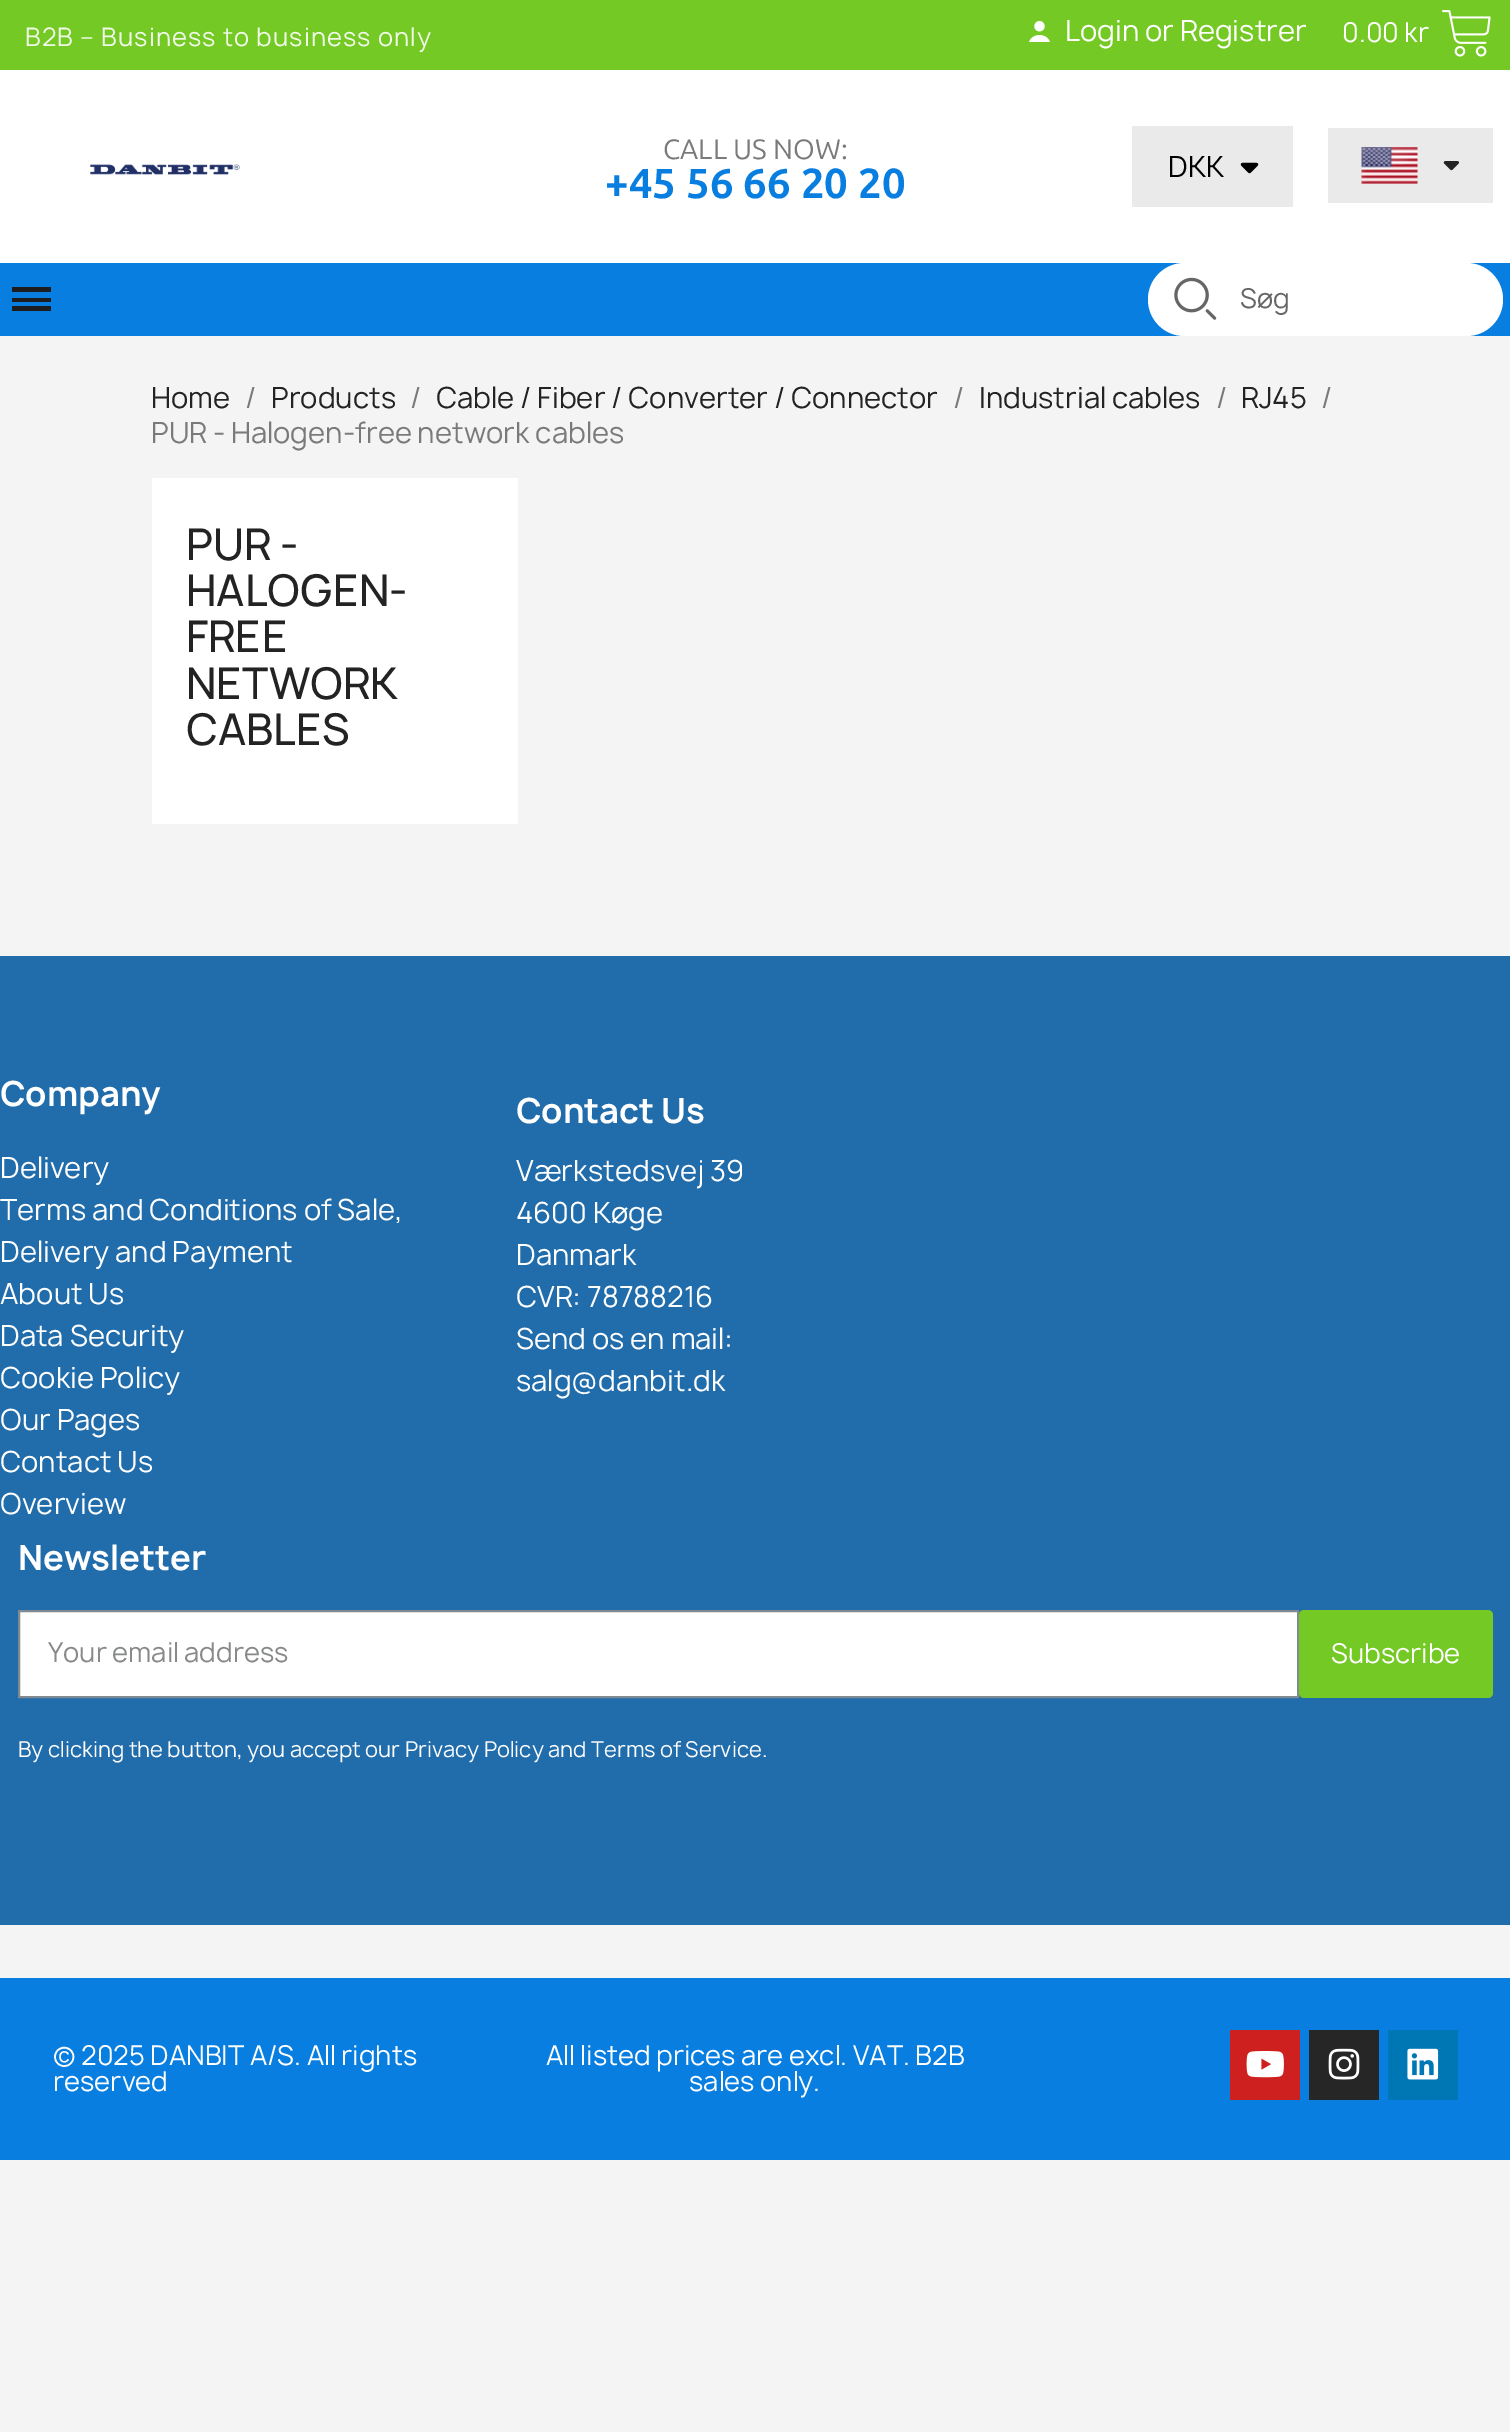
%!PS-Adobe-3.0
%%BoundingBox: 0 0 1510 2432
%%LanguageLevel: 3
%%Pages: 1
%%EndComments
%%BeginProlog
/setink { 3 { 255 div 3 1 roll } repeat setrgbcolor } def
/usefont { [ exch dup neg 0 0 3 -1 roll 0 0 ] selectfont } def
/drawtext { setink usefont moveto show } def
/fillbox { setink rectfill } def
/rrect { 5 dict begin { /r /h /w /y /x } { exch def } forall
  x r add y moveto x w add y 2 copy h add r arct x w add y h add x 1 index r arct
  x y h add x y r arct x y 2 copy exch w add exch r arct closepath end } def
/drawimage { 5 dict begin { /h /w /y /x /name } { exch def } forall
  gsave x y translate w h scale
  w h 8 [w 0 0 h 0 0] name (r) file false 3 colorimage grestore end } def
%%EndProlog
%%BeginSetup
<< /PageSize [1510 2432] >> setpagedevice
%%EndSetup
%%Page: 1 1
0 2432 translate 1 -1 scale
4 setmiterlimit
0 0 1510 2432 244 244 244 fillbox
0 70 1510 193 255 255 255 fillbox
0 0 1510 70 116 201 37 fillbox
/Manrope-Regular 24.5 usefont
241 250 233 setink
25 46 moveto 1.05 0 (B2B – Business to business only) ashow
(assets/img1.rgb) 1029 21 21 21 drawimage
(Login or Registrer) 1065 41 /Manrope-Regular 28 255 255 255 drawtext
(0.00 kr) 1342 42 /Manrope-Regular 26.25 255 255 255 drawtext
(assets/img2.rgb) 1442 10 49 47 drawimage
(assets/img3.rgb) 90 164 150 11 drawimage
(CALL US NOW:) 663 159 /Ubuntu-Regular 28 122 122 122 drawtext
(+45 56 66 20 20) 605 198 /Ubuntu-Bold 42 7 126 224 drawtext
1132 126 161 81 234 234 234 fillbox
(DKK) 1168 177 /Manrope-Regular 28 0 0 0 drawtext
(assets/img4.rgb) 1240 162 19 12 drawimage
1328 128 165 75 234 234 234 fillbox
(assets/img5.rgb) 1361 147 57 37 drawimage
(assets/img6.rgb) 1443 161 16 10 drawimage
0 263 1510 73 7 126 224 fillbox
12 298 39 4 29 29 31 fillbox
12 287 39 5 29 29 31 fillbox
12 306 39 5 29 29 31 fillbox
255 255 255 setink
1148 263 355 73 36.5 rrect fill
(assets/img7.rgb) 1174 277 43 43 drawimage
(Søg) 1240 308 /Manrope-Regular 26.25 102 102 102 drawtext
(Home) 151 408 /Manrope-Regular 28 35 35 35 drawtext
(/) 245 408 /Manrope-Regular 28 122 122 122 drawtext
(Products) 271 408 /Manrope-Regular 28 35 35 35 drawtext
(/) 410 408 /Manrope-Regular 28 122 122 122 drawtext
(Cable / Fiber / Converter / Connector) 436 408 /Manrope-Regular 28 35 35 35 drawtext
(/) 953 408 /Manrope-Regular 28 122 122 122 drawtext
(Industrial cables) 979 408 /Manrope-Regular 28 35 35 35 drawtext
(/) 1216 408 /Manrope-Regular 28 122 122 122 drawtext
(RJ45) 1241 408 /Manrope-Regular 28 35 35 35 drawtext
(/) 1321 408 /Manrope-Regular 28 122 122 122 drawtext
(PUR - Halogen-free network cables) 151 443 /Manrope-Regular 28 122 122 122 drawtext
152 478 366 346 255 255 255 fillbox
(PUR -) 186 560 /Manrope-Medium 42 35 35 35 drawtext
(HALOGEN-) 186 606 /Manrope-Medium 42 35 35 35 drawtext
(FREE) 186 652 /Manrope-Medium 42 35 35 35 drawtext
(NETWORK) 186 699 /Manrope-Medium 42 35 35 35 drawtext
(CABLES) 186 745 /Manrope-Medium 42 35 35 35 drawtext
0 956 1510 969 33 108 170 fillbox
(Company) 0 1106 /Manrope-Bold 33.25 255 255 255 drawtext
(Delivery) 0 1178 /Manrope-Regular 28 255 255 255 drawtext
(Terms and Conditions of Sale,) 0 1220 /Manrope-Regular 28 255 255 255 drawtext
(Delivery and Payment) 0 1262 /Manrope-Regular 28 255 255 255 drawtext
(About Us) 0 1304 /Manrope-Regular 28 255 255 255 drawtext
(Data Security) 0 1346 /Manrope-Regular 28 255 255 255 drawtext
(Cookie Policy) 0 1388 /Manrope-Regular 28 255 255 255 drawtext
(Our Pages) 0 1430 /Manrope-Regular 28 255 255 255 drawtext
(Contact Us) 0 1472 /Manrope-Regular 28 255 255 255 drawtext
(Overview) 0 1514 /Manrope-Regular 28 255 255 255 drawtext
(Contact Us) 516 1123 /Manrope-Bold 33.25 255 255 255 drawtext
(Værkstedsvej 39) 516 1181 /Manrope-Regular 28 255 255 255 drawtext
(4600 Køge) 516 1223 /Manrope-Regular 28 255 255 255 drawtext
(Danmark) 516 1265 /Manrope-Regular 28 255 255 255 drawtext
(CVR: 78788216) 516 1307 /Manrope-Regular 28 255 255 255 drawtext
(Send os en mail:) 516 1349 /Manrope-Regular 28 255 255 255 drawtext
(salg@danbit.dk) 516 1391 /Manrope-Regular 28 255 255 255 drawtext
(Newsletter) 18 1570 /Manrope-Bold 33.25 255 255 255 drawtext
19 1611 moveto 1298 1611 lineto 1298 1697 lineto 19 1697 lineto closepath gsave fill grestore
129 138 145 setink
2 setlinewidth
stroke
(Your email address) 48 1662 /Manrope-Regular 26.25 135 137 138 drawtext
116 201 37 setink
1299 1610 194 88 5 rrect fill
(Subscribe) 1331 1663 /Manrope-Regular 26.25 255 255 255 drawtext
(By clicking the button, you accept our Privacy Policy and Terms of Service.) 18 1757 /Manrope-Regular 21 255 255 255 drawtext
0 1978 1510 182 7 126 224 fillbox
(© 2025 DANBIT A/S. All rights) 53 2065 /Manrope-Regular 26.25 255 255 255 drawtext
(reserved) 53 2091 /Manrope-Regular 26.25 255 255 255 drawtext
(All listed prices are excl. VAT. B2B) 546 2065 /Manrope-Regular 26.25 255 255 255 drawtext
(sales only.) 689 2091 /Manrope-Regular 26.25 255 255 255 drawtext
1230 2030 70 70 205 32 31 fillbox
(assets/img8.rgb) 1246 2051 38 27 drawimage
1309 2030 70 70 38 38 38 fillbox
(assets/img9.rgb) 1328 2048 32 32 drawimage
1388 2030 70 70 0 119 181 fillbox
(assets/img10.rgb) 1407 2048 32 32 drawimage
showpage
%%EOF
